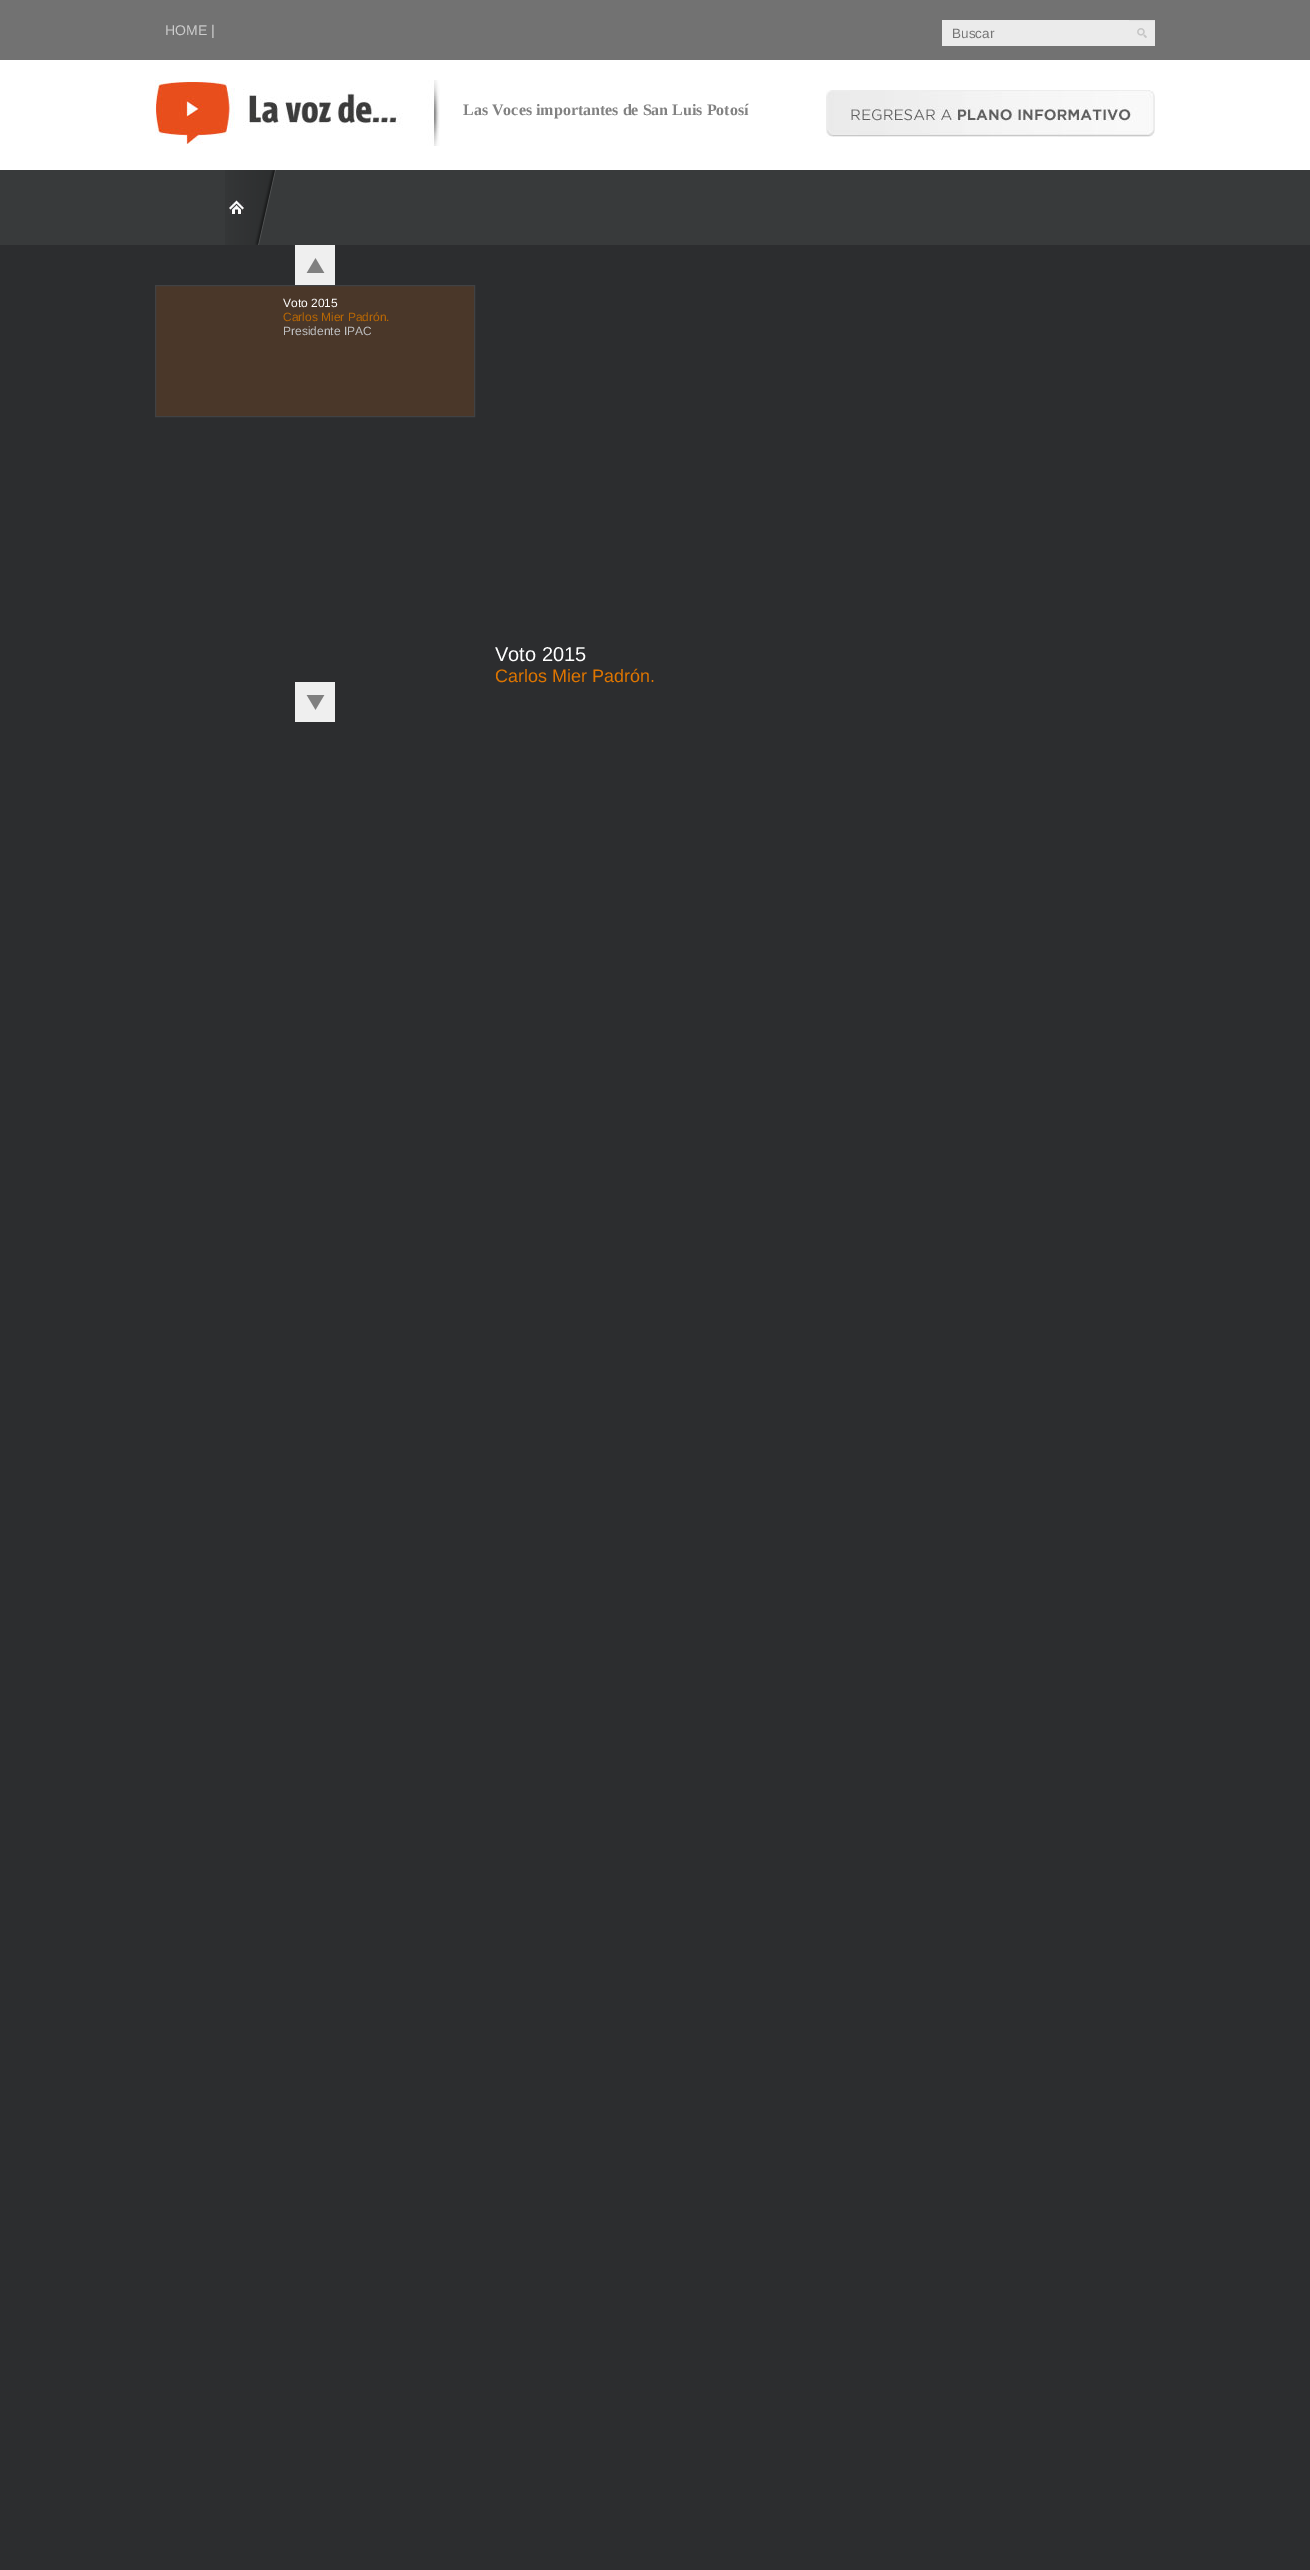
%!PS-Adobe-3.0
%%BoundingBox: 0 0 1310 2570
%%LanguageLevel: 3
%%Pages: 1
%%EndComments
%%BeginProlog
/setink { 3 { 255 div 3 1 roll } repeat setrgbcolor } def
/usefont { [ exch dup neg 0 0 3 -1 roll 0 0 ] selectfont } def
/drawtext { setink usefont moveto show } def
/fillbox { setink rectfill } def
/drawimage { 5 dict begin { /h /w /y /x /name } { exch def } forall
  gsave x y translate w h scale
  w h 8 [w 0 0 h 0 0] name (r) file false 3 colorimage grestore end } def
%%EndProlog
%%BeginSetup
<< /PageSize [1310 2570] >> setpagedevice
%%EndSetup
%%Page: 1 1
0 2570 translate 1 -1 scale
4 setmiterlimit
0 0 1310 2570 44 45 47 fillbox
0 0 1310 60 114 114 114 fillbox
(HOME |) 165 35 /LiberationSans-Regular 14 205 205 205 drawtext
942 20 187 26 235 235 235 fillbox
(Buscar) 952 38 /LiberationSans-Regular 13.5 117 117 117 drawtext
(assets/img1.rgb) 1129 20 26 26 drawimage
0 60 1310 110 255 255 255 fillbox
(assets/img2.rgb) 155 80 285 66 drawimage
(Las Voces importantes de San Luis Potosí) 463 115 /LiberationSerif-Bold 16 130 130 130 drawtext
(assets/img3.rgb) 826 90 329 47 drawimage
0 170 1310 75 56 58 59 fillbox
(assets/img4.rgb) 225 170 51 75 drawimage
(assets/img5.rgb) 229 200 15 14 drawimage
295 245 40 40 239 239 239 fillbox
(assets/img6.rgb) 306 258 19 15 drawimage
74 55 41 setink
155.5 285.5 moveto 474.5 285.5 lineto 474.5 416.5 lineto 155.5 416.5 lineto closepath gsave fill grestore
65 66 68 setink
stroke
(Voto 2015) 283 307 /LiberationSans-Regular 12 255 255 255 drawtext
(Carlos Mier Padrón.) 283 321 /LiberationSans-Regular 12 185 103 3 drawtext
(Presidente IPAC) 283 335 /LiberationSans-Regular 12 191 192 194 drawtext
295 682 40 40 239 239 239 fillbox
(assets/img7.rgb) 306 695 19 15 drawimage
(Voto 2015) 495 661 /LiberationSans-Regular 20 255 255 255 drawtext
(Carlos Mier Padrón.) 495 682 /LiberationSans-Regular 18 222 117 0 drawtext
showpage
%%EOF
